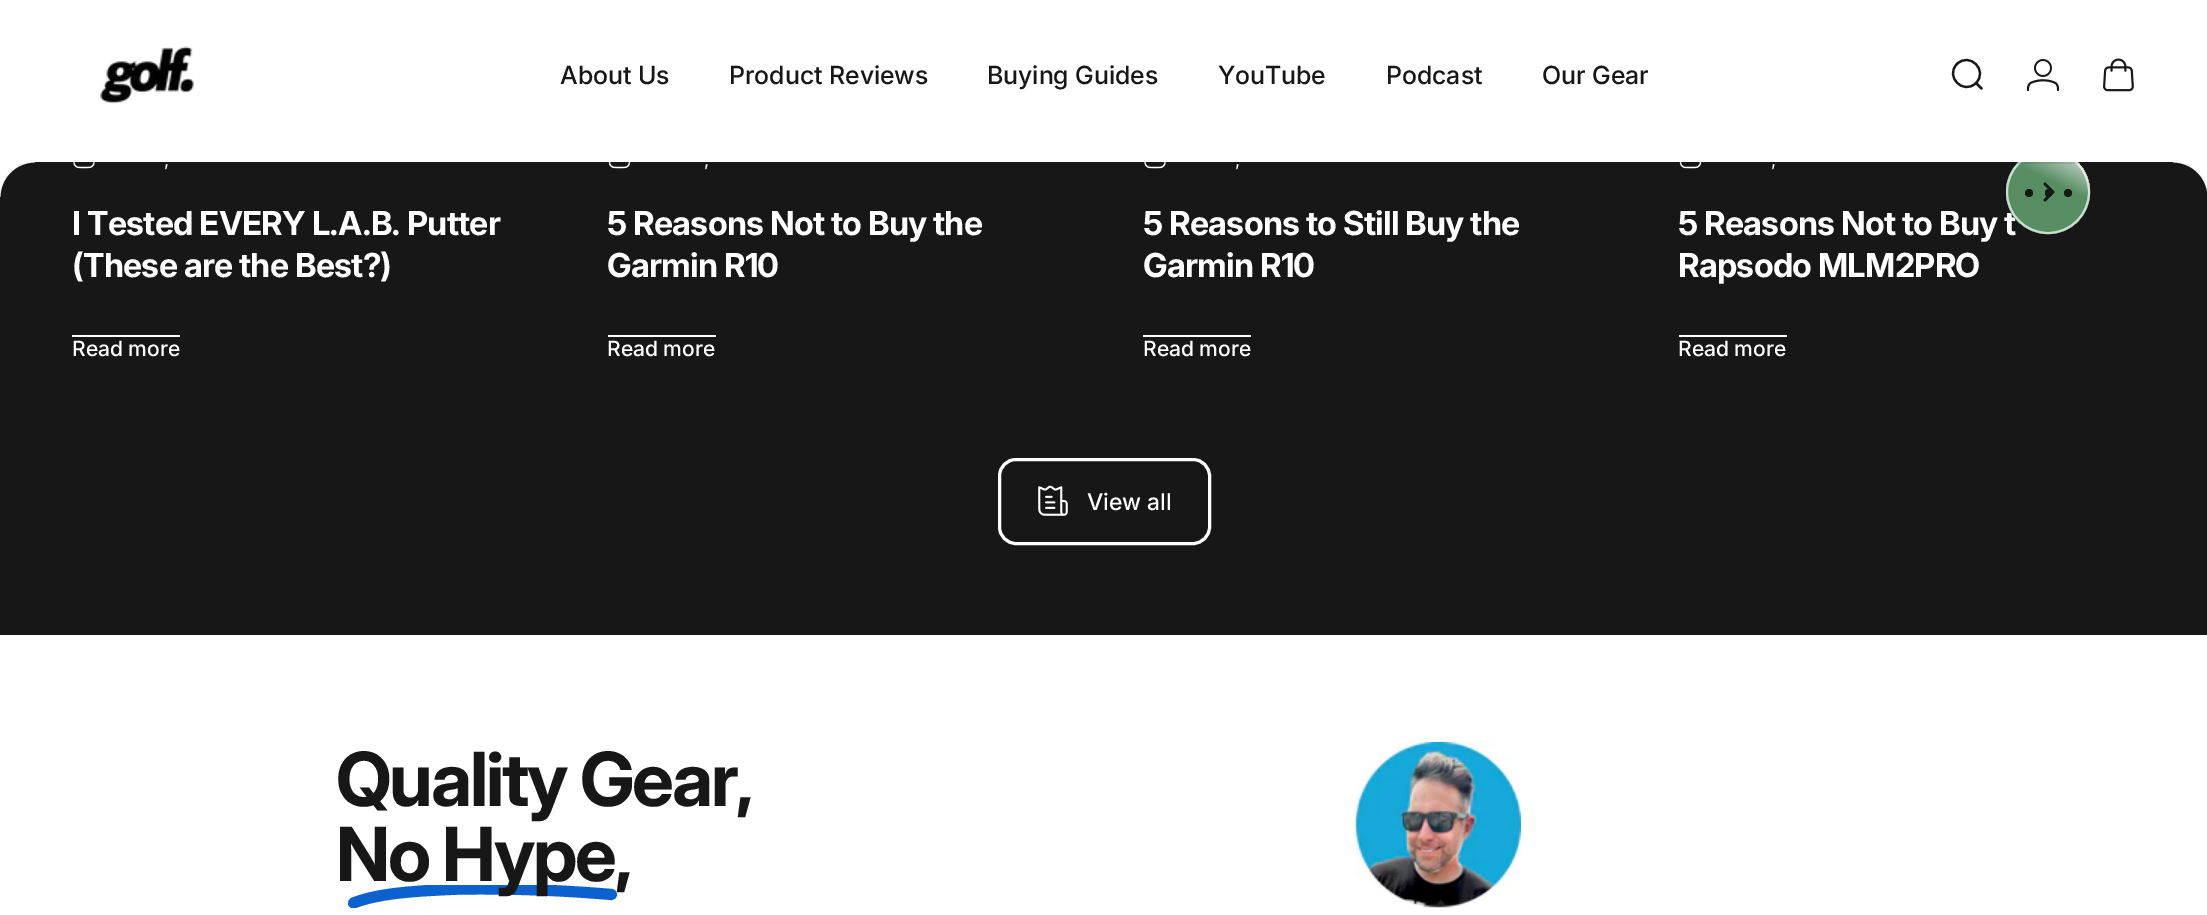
%!PS-Adobe-3.0
%%BoundingBox: 0 0 2207 915
%%LanguageLevel: 3
%%Pages: 1
%%EndComments
%%BeginProlog
/setink { 3 { 255 div 3 1 roll } repeat setrgbcolor } def
/usefont { [ exch dup neg 0 0 3 -1 roll 0 0 ] selectfont } def
/drawtext { setink usefont moveto show } def
/fillbox { setink rectfill } def
/setalpha { dup .setfillconstantalpha .setstrokeconstantalpha } def
/disc { newpath 0 360 arc closepath } def
/rrect { 5 dict begin { /r /h /w /y /x } { exch def } forall
  x r add y moveto x w add y 2 copy h add r arct x w add y h add x 1 index r arct
  x y h add x y r arct x y 2 copy exch w add exch r arct closepath end } def
/drawimage { 5 dict begin { /h /w /y /x /name } { exch def } forall
  gsave x y translate w h scale
  w h 8 [w 0 0 h 0 0] name (r) file false 3 colorimage grestore end } def
%%EndProlog
%%BeginSetup
<< /PageSize [2207 915] /PageUsesTransparency true >> setpagedevice
%%EndSetup
%%Page: 1 1
0 .pushpdf14devicefilter
0 915 translate 1 -1 scale
4 setmiterlimit
0 0 2207 915 23 23 23 fillbox
/Inter-Bold 33.1 usefont
255 255 255 setink
1678 235 moveto -0.8 0 (5 Reasons Not to Buy t) ashow
0.7 setalpha
2048 192 42 disc fill
gsave 2048 192 42 disc clip newpath
<< /ShadingType 2 /ColorSpace /DeviceRGB /Coords [2023 242 2072 142] /Extend [true true] /Function << /FunctionType 3 /Domain [0 1] /Functions [<< /FunctionType 2 /Domain [0 1] /C0 [0.169 0.482 0.239] /C1 [0.169 0.482 0.239] /N 1 >> << /FunctionType 2 /Domain [0 1] /C0 [0.169 0.482 0.239] /C1 [1 1 1] /N 1 >>] /Bounds [0.6] /Encode [0 1 0 1] >> >> shfill grestore
1 setalpha
23 23 23 setink
2029 193 4 disc fill
2045 189 7 8 3.5 rrect fill
2068 193 4 disc fill
0.7 setalpha
255 255 255 setink
2 setlinewidth
2048 192 41 disc stroke
1 setalpha
0 0 2207 162 255 255 255 fillbox
(assets/img1.rgb) 100 46 94 58 drawimage
(About Us) 560 84 /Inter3-Medium 25 23 23 23 drawtext
(Product Reviews) 729 84 /Inter3-Medium 25 23 23 23 drawtext
(Buying Guides) 987 84 /Inter3-Medium 25 23 23 23 drawtext
(YouTube) 1218 84 /Inter3-Medium 25 23 23 23 drawtext
(Podcast) 1386 84 /Inter3-Medium 25 23 23 23 drawtext
(Our Gear) 1542 84 /Inter3-Medium 25 23 23 23 drawtext
2.2 setlinewidth
1 setlinecap
1981.5 88.5 moveto 1976 83 lineto 1976 83 moveto 1988.5 70.5 1969.5 51.5 1957 64 curveto 1944.5 76.5 1963.5 95.5 1976 83 curveto closepath stroke
(assets/img2.rgb) 2026 59 34 33 drawimage
(assets/img3.rgb) 2103 58 31 34 drawimage
255 255 255 setink
35 162 moveto 0 162 lineto 0 197 lineto 0.5 197 lineto 0.5 178 16 162.5 35 162.5 curveto closepath eofill
0.11 setalpha
23 23 23 setink
1.2 setlinewidth
0 setlinecap
0.5 197 moveto 0.5 178 16 162.5 35 162.5 curveto stroke
1 setalpha
(assets/img4.rgb) 73 162 22 7 drawimage
(assets/img5.rgb) 608 162 23 7 drawimage
(assets/img4.rgb) 1144 162 22 7 drawimage
(assets/img5.rgb) 1679 162 23 7 drawimage
0.11 setalpha
73 162 2006 2 23 23 23 fillbox
1 setalpha
255 255 255 setink
2173 162 moveto 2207.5 162 lineto 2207.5 197 lineto 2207.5 178 2192 162.5 2173 162.5 curveto closepath eofill
0.11 setalpha
23 23 23 setink
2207.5 197 moveto 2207.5 178 2192 162.5 2173 162.5 curveto stroke
1 setalpha
(,) 164 166 /Inter-Regular 18 255 255 255 drawtext
/Inter-Bold 33.1 usefont
72 235 moveto -0.8 0 (I Tested EVERY L.A.B. Putter) ashow
72 277 moveto -0.8 0 (\(These are the Best?\)) ashow
(Read more) 72 356 /Inter-Medium 21 255 255 255 drawtext
72 335 108 2 255 255 255 fillbox
(,) 704 166 /Inter-Regular 18 255 255 255 drawtext
/Inter-Bold 33.1 usefont
607 235 moveto -0.8 0 (5 Reasons Not to Buy the) ashow
607 277 moveto -0.8 0 (Garmin R10) ashow
(Read more) 607 356 /Inter-Medium 21 255 255 255 drawtext
608 335 108 2 255 255 255 fillbox
(,) 1235 166 /Inter-Regular 18 255 255 255 drawtext
/Inter-Bold 33.1 usefont
1143 235 moveto -0.8 0 (5 Reasons to Still Buy the) ashow
1143 277 moveto -0.8 0 (Garmin R10) ashow
(Read more) 1143 356 /Inter-Medium 21 255 255 255 drawtext
1143 335 108 2 255 255 255 fillbox
(,) 1771 166 /Inter-Regular 18 255 255 255 drawtext
/Inter-Bold 33.1 usefont
1678 277 moveto -0.8 0 (Rapsodo MLM2PRO) ashow
(Read more) 1678 356 /Inter-Medium 21 255 255 255 drawtext
1679 335 108 2 255 255 255 fillbox
23 23 23 setink
2.8 setlinewidth
1 setlinecap
1 setlinejoin
2045 184 moveto 2053 192 lineto 2045 200 lineto stroke
255 255 255 setink
3 setlinewidth
0 setlinecap
0 setlinejoin
999.5 459.5 210 84 16.5 rrect stroke
(assets/img6.rgb) 1038 485 30 31 drawimage
(View all) 1087 510 /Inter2-Medium 23 255 255 255 drawtext
0 635 2207 280 255 255 255 fillbox
/Inter2-Bold 74.5 usefont
23 23 23 setink
336 806 moveto -2.25 0 (Quality Gear,) ashow
gsave
336 885 294 23 rectclip
11 97 205 setink
11.1 setlinewidth
1 setlinecap
353.5 903 moveto 374 895 402 891 462.5 889 curveto 483 889 535 888 611.5 894.5 curveto stroke
grestore
336 881 moveto -2.25 0 (No Hype,) ashow
(assets/img7.rgb) 1355 742 166 166 drawimage
.poppdf14devicefilter showpage
%%EOF
